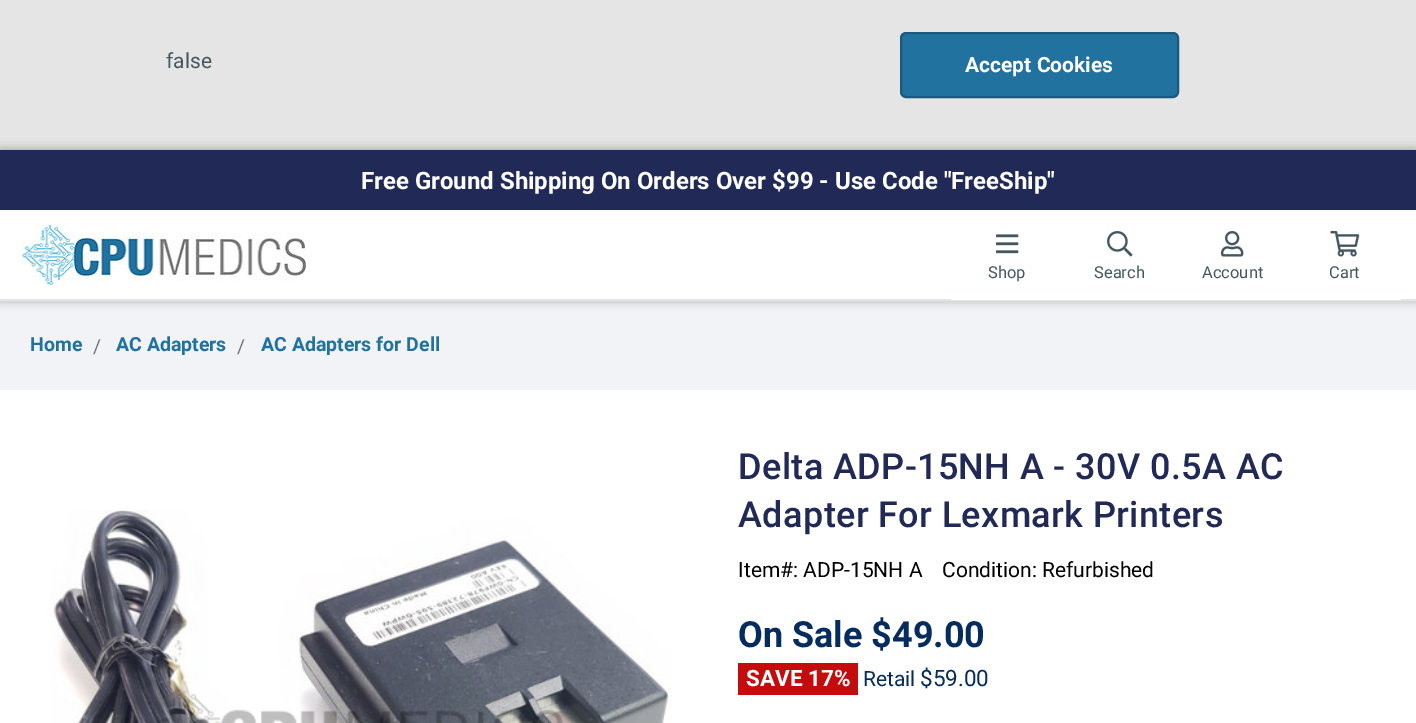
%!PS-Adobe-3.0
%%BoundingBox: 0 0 1416 723
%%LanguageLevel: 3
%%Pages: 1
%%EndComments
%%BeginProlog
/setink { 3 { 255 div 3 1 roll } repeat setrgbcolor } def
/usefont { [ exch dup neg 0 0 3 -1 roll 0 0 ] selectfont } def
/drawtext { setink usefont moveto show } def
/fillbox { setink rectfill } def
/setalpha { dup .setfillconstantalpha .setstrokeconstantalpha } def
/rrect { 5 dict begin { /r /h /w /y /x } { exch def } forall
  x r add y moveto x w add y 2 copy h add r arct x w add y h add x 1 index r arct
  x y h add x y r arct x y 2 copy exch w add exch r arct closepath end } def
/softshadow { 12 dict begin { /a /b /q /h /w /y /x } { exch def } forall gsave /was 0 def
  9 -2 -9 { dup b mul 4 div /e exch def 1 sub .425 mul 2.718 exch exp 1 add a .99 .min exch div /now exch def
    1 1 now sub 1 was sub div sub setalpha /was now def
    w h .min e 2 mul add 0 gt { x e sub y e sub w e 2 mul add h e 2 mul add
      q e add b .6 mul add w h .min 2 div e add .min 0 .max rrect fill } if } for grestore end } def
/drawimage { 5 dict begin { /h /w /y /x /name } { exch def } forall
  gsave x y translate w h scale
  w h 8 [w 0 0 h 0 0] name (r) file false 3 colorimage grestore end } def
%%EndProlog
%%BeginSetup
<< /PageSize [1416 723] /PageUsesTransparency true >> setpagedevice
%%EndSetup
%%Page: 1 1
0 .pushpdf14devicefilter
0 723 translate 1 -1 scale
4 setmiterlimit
0 0 1416 723 241 243 247 fillbox
0 0 1416 150 229 229 229 fillbox
(false) 166 68 /Roboto-Regular 21 68 86 96 drawtext
34 114 159 setink
901 33 277 64 5 rrect gsave fill grestore
25 90 126 setink
2 setlinewidth
stroke
(Accept Cookies) 965 72 /Roboto-Bold 21 255 255 255 drawtext
0 0 0 setink
0 150 1416 150 0 5 0.34 softshadow
0 210 1416 89 255 255 255 fillbox
0 299 1416 2 229 229 229 fillbox
0 150 1416 60 33 41 87 fillbox
(Free Ground Shipping On Orders Over $99 - Use Code "FreeShip") 361 189 /Roboto-Bold 24 255 255 255 drawtext
(assets/img1.rgb) 22 225 284 60 drawimage
951 299 113 1 255 255 255 fillbox
(assets/img2.rgb) 995 234 24 20 drawimage
(Shop) 988 278 /Roboto-Regular 16.5 68 86 96 drawtext
(assets/img3.rgb) 1107 231 26 26 drawimage
(Search) 1094 278 /Roboto-Regular 16.5 68 86 96 drawtext
1064 299 337 1 255 255 255 fillbox
(assets/img4.rgb) 1220 231 24 26 drawimage
(Account) 1202 278 /Roboto-Regular 16.5 68 86 96 drawtext
(assets/img5.rgb) 1330 230 30 27 drawimage
(Cart) 1329 278 /Roboto-Regular 16.5 68 86 96 drawtext
(Home) 30 351 /Roboto-Bold 19.5 34 114 159 drawtext
(/) 93 353 /Roboto-Regular 19.5 117 117 117 drawtext
(AC Adapters) 116 351 /Roboto-Bold 19.5 34 114 159 drawtext
(/) 237 353 /Roboto-Regular 19.5 117 117 117 drawtext
(AC Adapters for Dell) 261 351 /Roboto-Bold 19.5 34 114 159 drawtext
0 390 1416 333 255 255 255 fillbox
(assets/img6.rgb) 51 510 621 213 drawimage
(assets/img7.rgb) 149 690 414 33 drawimage
/Roboto-Medium 36 usefont
33 41 87 setink
738 479 moveto 0.4 0 (Delta ADP-15NH A - 30V 0.5A AC) ashow
738 527 moveto 0.4 0 (Adapter For Lexmark Printers) ashow
(Item#: ADP-15NH A) 738 577 /Roboto-Regular 21 0 0 0 drawtext
(Condition: Refurbished) 942 577 /Roboto-Regular 21 0 0 0 drawtext
(On Sale $49.00) 738 647 /Roboto-Bold 36 5 44 95 drawtext
738 663 120 32 196 12 12 fillbox
(SAVE 17%) 746 686 /Roboto-Bold 22.5 255 255 255 drawtext
(Retail) 863 686 /Roboto-Regular 21 5 44 95 drawtext
($59.00) 920 686 /Roboto-Regular 22.5 5 44 95 drawtext
.poppdf14devicefilter showpage
%%EOF
